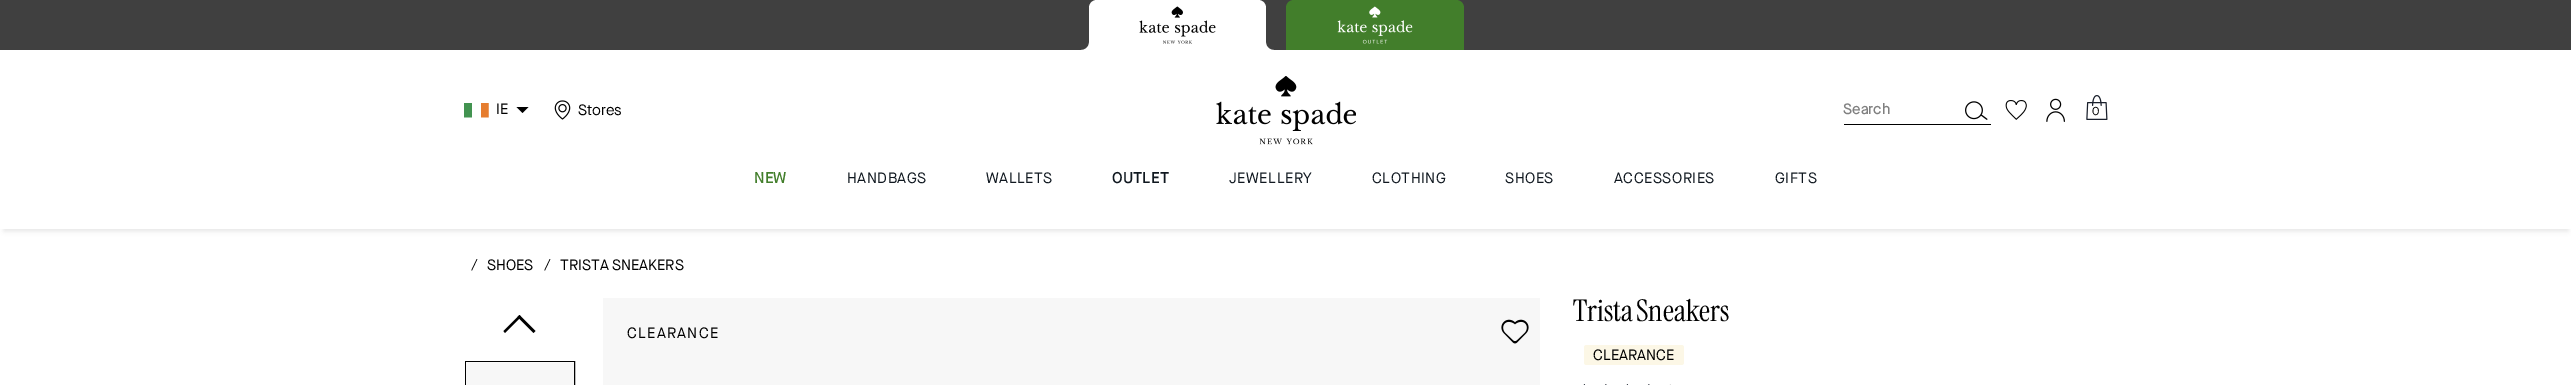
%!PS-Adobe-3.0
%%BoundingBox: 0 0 2571 385
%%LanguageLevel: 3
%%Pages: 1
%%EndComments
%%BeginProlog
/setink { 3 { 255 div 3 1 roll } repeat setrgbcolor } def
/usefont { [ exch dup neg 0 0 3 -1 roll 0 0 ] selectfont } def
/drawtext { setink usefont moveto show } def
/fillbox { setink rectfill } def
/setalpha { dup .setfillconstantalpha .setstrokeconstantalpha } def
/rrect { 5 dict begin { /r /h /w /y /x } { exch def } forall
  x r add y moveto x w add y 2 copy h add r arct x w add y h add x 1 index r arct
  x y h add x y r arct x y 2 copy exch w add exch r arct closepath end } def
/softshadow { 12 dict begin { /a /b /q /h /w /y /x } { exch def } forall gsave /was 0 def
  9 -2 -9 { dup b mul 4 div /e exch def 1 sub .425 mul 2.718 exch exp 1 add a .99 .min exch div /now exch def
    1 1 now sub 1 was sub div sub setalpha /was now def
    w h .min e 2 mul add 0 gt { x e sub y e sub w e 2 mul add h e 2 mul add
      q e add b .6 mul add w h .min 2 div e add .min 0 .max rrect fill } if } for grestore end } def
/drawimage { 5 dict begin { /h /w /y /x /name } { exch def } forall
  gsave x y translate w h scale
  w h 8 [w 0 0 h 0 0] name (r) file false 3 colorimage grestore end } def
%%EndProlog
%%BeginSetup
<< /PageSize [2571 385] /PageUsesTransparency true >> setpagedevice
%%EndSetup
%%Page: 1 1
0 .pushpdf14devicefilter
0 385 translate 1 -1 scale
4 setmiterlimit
0 0 2571 385 255 255 255 fillbox
0 0 2571 50 64 64 64 fillbox
255 255 255 setink
1097 0 moveto 1258 0 lineto 1262.5 0 1266 3.5 1266 8 curveto 1266 50 lineto 1089 50 lineto 1089 8 lineto 1089 3.5 1092.5 0 1097 0 curveto closepath fill
1081 50 moveto 1087.5 50 1097 52 1099 43.5 curveto 1099 38 lineto 1089 38 lineto 1089 42.5 lineto 1089 46.5 1085.5 50 1081 50 curveto closepath fill
(assets/img1.rgb) 1139 6 77 38 drawimage
1256 38 moveto 1256 43.5 lineto 1258 52 1267.5 50 1274 50 curveto 1269.5 50 1266 46.5 1266 42.5 curveto 1266 38 lineto closepath fill
66 126 43 setink
1294 0 moveto 1456 0 lineto 1460.5 0 1464 3.5 1464 8 curveto 1464 50 lineto 1286 50 lineto 1286 8 lineto 1286 3.5 1289.5 0 1294 0 curveto closepath fill
(assets/img2.rgb) 1337 6 76 38 drawimage
(assets/img3.rgb) 464 103 25 15 drawimage
(IE) 496 114 /MaisonNeue-Regular 15 0 0 0 drawtext
522.5 113 moveto 528.5 107 lineto 516.5 107 lineto closepath eofill
(assets/img4.rgb) 554 100 17 20 drawimage
(Stores) 578 115 /MaisonNeue-Regular 15 0 0 0 drawtext
(assets/img5.rgb) 1216 76 140 69 drawimage
1844 124 147 1 0 0 0 fillbox
(Search) 1843 114 /MaisonNeue-Medium 15 128 128 128 drawtext
(assets/img6.rgb) 1965 101 23 19 drawimage
(assets/img7.rgb) 2005 100 22 20 drawimage
(assets/img8.rgb) 2046 98 19 24 drawimage
(assets/img9.rgb) 2086 95 22 25 drawimage
/MaisonNeue-Regular 12 usefont
0 0 0 setink
2092 115 moveto 1.25 0 (0) ashow
gsave
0 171 moveto 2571 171 lineto 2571 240 lineto 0 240 lineto closepath 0 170 moveto 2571 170 lineto 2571 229 lineto 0 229 lineto closepath eoclip newpath
4 180 2564 51 0 2.5 0.1 softshadow
grestore
/MaisonNeue-Bold 15 usefont
66 126 43 setink
754 183 moveto 0.5 0 (NEW) ashow
/MaisonNeue-Regular 15 usefont
16 24 32 setink
847 183 moveto 0.5 0 (HANDBAGS) ashow
986 183 moveto 0.5 0 (WALLETS) ashow
/MaisonNeue-Bold 15 usefont
1112 183 moveto 0.5 0 (OUTLET) ashow
/MaisonNeue-Regular 15 usefont
1229 183 moveto 0.5 0 (JEWELLERY) ashow
1372 183 moveto 0.5 0 (CLOTHING) ashow
1505 183 moveto 0.5 0 (SHOES) ashow
1614 183 moveto 0.5 0 (ACCESSORIES) ashow
1775 183 moveto 0.5 0 (GIFTS) ashow
(/) 471 270 /MaisonNeue-Regular 15 0 0 0 drawtext
(SHOES) 487 270 /MaisonNeue-Regular 15 0 0 0 drawtext
(/) 544 270 /MaisonNeue-Regular 15 0 0 0 drawtext
560 270 moveto -1 0 32 (TRISTA SNEAKERS) widthshow
503.5 331 moveto 519.5 315 lineto 521 317 lineto 505 333 lineto closepath fill
517.5 317 moveto 519.5 315 lineto 535.5 331 lineto 533.5 333 lineto closepath fill
465.5 361.5 109 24 rectstroke
(assets/img10.rgb) 466 362 108 23 drawimage
603 298 937 87 247 247 247 fillbox
0 0 0 setink
627 338 moveto 1.25 0 (CLEARANCE) ashow
(assets/img11.rgb) 1501 319 28 25 drawimage
/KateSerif-Regular 30 usefont
1573 321 moveto -2 0 32 (Trista Sneakers) widthshow
252 247 230 setink
1584 345 100 20 2.5 rrect fill
(CLEARANCE) 1593 360 /MaisonNeue-Regular 15 0 0 0 drawtext
(assets/img12.rgb) 1583 384 2 1 drawimage
(assets/img13.rgb) 1605 384 2 1 drawimage
(assets/img12.rgb) 1626 384 2 1 drawimage
(assets/img13.rgb) 1648 384 2 1 drawimage
(assets/img14.rgb) 1669 384 2 1 drawimage
.poppdf14devicefilter showpage
%%EOF
